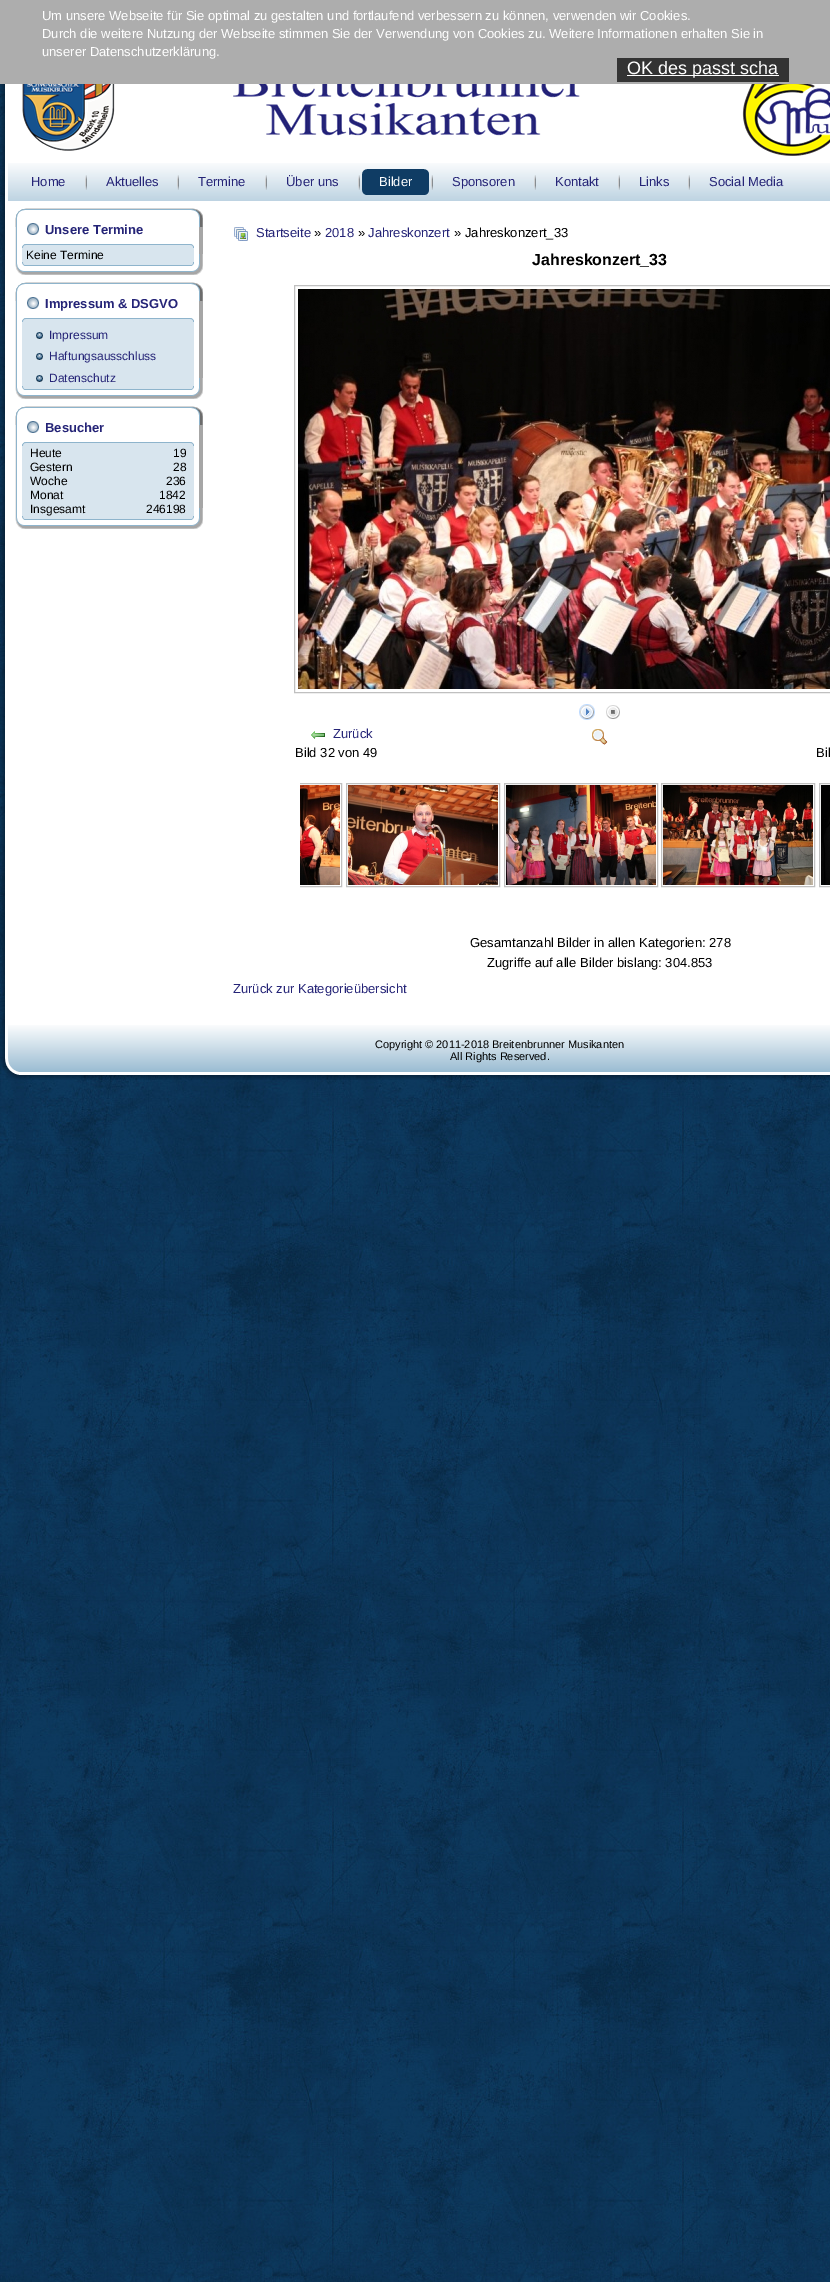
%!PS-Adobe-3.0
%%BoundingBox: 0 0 830 2282
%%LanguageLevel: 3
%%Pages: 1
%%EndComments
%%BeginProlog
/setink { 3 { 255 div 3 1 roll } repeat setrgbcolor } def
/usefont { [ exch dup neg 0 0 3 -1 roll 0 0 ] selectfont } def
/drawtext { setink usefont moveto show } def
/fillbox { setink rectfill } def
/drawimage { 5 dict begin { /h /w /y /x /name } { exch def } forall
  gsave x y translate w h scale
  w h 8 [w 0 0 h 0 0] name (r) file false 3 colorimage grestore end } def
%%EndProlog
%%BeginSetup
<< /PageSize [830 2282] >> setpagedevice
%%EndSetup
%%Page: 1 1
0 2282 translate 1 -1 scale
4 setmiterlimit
0 0 830 2282 255 255 255 fillbox
(assets/img1.rgb) 0 84 830 2198 drawimage
0 0 830 84 173 173 173 fillbox
(Um unsere Webseite für Sie optimal zu gestalten und fortlaufend verbessern zu können, verwenden wir Cookies.) 42 20 /LiberationSans-Regular 13 255 255 255 drawtext
(Durch die weitere Nutzung der Webseite stimmen Sie der Verwendung von Cookies zu. Weitere Informationen erhalten Sie in) 42 38 /LiberationSans-Regular 13 255 255 255 drawtext
(unserer Datenschutzerklärung.) 42 56 /LiberationSans-Regular 13 255 255 255 drawtext
617 58 172 24 51 51 51 fillbox
627 75 152 1 255 255 255 fillbox
(OK des passt scha) 627 74 /LiberationSans-Regular 18 255 255 255 drawtext
(assets/img2.rgb) 0 84 830 959 drawimage
(assets/img3.rgb) 22 84 808 72 drawimage
(assets/img4.rgb) 8 163 822 38 drawimage
(Home) 31 186 /LiberationSans-Regular 13 37 36 119 drawtext
(assets/img5.rgb) 85 175 2 15 drawimage
(Aktuelles) 106 186 /LiberationSans-Regular 13 37 36 119 drawtext
(assets/img5.rgb) 177 175 2 15 drawimage
(Termine) 198 186 /LiberationSans-Regular 13 37 36 119 drawtext
(assets/img5.rgb) 265 175 2 15 drawimage
(Über uns) 286 186 /LiberationSans-Regular 13 37 36 119 drawtext
(assets/img5.rgb) 358 175 2 15 drawimage
(assets/img6.rgb) 362 169 62 26 drawimage
(assets/img7.rgb) 424 169 5 26 drawimage
(Bilder) 379 186 /LiberationSans-Regular 13 255 255 255 drawtext
(assets/img5.rgb) 431 175 2 15 drawimage
(Sponsoren) 452 186 /LiberationSans-Regular 13 37 36 119 drawtext
(assets/img5.rgb) 534 175 2 15 drawimage
(Kontakt) 555 186 /LiberationSans-Regular 13 37 36 119 drawtext
(assets/img5.rgb) 618 175 2 15 drawimage
(Links) 639 186 /LiberationSans-Regular 13 37 36 119 drawtext
(assets/img5.rgb) 688 175 2 15 drawimage
(Social Media) 709 186 /LiberationSans-Regular 13 37 36 119 drawtext
(assets/img8.rgb) 15 208 167 67 drawimage
(assets/img9.rgb) 15 208 167 19 drawimage
199 227 4 27 166 166 166 fillbox
(assets/img10.rgb) 182 208 21 67 drawimage
(assets/img11.rgb) 182 208 21 19 drawimage
(assets/img12.rgb) 15 227 2 27 drawimage
(assets/img13.rgb) 27 223 12 12 drawimage
(Unsere Termine) 45 234 /LiberationSans-Bold 13 37 36 119 drawtext
(assets/img14.rgb) 22 244 168 22 drawimage
(assets/img15.rgb) 22 244 4 3 drawimage
22 248 172 14 216 229 238 fillbox
(assets/img16.rgb) 190 244 4 22 drawimage
(assets/img17.rgb) 190 244 4 3 drawimage
(Keine Termine) 26 259 /LiberationSans-Regular 12 0 0 0 drawtext
(assets/img18.rgb) 15 282 167 117 drawimage
(assets/img9.rgb) 15 282 167 19 drawimage
199 301 4 77 166 166 166 fillbox
(assets/img19.rgb) 182 282 21 117 drawimage
(assets/img11.rgb) 182 282 21 19 drawimage
(assets/img20.rgb) 15 301 2 77 drawimage
(assets/img13.rgb) 27 297 12 12 drawimage
(Impressum & DSGVO) 45 308 /LiberationSans-Bold 13 37 36 119 drawtext
(assets/img21.rgb) 22 318 168 72 drawimage
(assets/img15.rgb) 22 318 4 3 drawimage
22 322 172 64 216 229 238 fillbox
(assets/img22.rgb) 190 318 4 72 drawimage
(assets/img17.rgb) 190 318 4 3 drawimage
(assets/img23.rgb) 36 332 7 7 drawimage
(Impressum) 49 339 /LiberationSans-Regular 12 37 36 119 drawtext
(assets/img23.rgb) 36 353 7 7 drawimage
(Haftungsausschluss) 49 360 /LiberationSans-Regular 12 37 36 119 drawtext
(assets/img23.rgb) 36 375 7 7 drawimage
(Datenschutz) 49 382 /LiberationSans-Regular 12 37 36 119 drawtext
(assets/img24.rgb) 15 406 167 123 drawimage
(assets/img9.rgb) 15 406 167 19 drawimage
199 425 4 83 166 166 166 fillbox
(assets/img25.rgb) 182 406 21 123 drawimage
(assets/img11.rgb) 182 406 21 19 drawimage
(assets/img26.rgb) 15 425 2 83 drawimage
(assets/img13.rgb) 27 421 12 12 drawimage
(Besucher) 45 432 /LiberationSans-Bold 13 37 36 119 drawtext
(assets/img27.rgb) 22 442 168 78 drawimage
(assets/img15.rgb) 22 442 4 3 drawimage
22 446 172 70 216 229 238 fillbox
(assets/img28.rgb) 190 442 4 78 drawimage
(assets/img17.rgb) 190 442 4 3 drawimage
(Heute) 30 457 /LiberationSans-Regular 12 0 0 0 drawtext
(19) 173 457 /LiberationSans-Regular 12 0 0 0 drawtext
(Gestern) 30 471 /LiberationSans-Regular 12 0 0 0 drawtext
(28) 173 471 /LiberationSans-Regular 12 0 0 0 drawtext
(Woche) 30 485 /LiberationSans-Regular 12 0 0 0 drawtext
(236) 166 485 /LiberationSans-Regular 12 0 0 0 drawtext
(Monat) 30 499 /LiberationSans-Regular 12 0 0 0 drawtext
(1842) 159 499 /LiberationSans-Regular 12 0 0 0 drawtext
(Insgesamt) 30 513 /LiberationSans-Regular 12 0 0 0 drawtext
(246198) 146 513 /LiberationSans-Regular 12 0 0 0 drawtext
(assets/img29.rgb) 234 227 14 14 drawimage
(Startseite) 256 237 /LiberationSans-Regular 13 37 36 119 drawtext
(») 314 237 /LiberationSans-Regular 13 0 0 0 drawtext
(2018) 325 237 /LiberationSans-Regular 13 37 36 119 drawtext
(») 358 237 /LiberationSans-Regular 13 0 0 0 drawtext
(Jahreskonzert) 368 237 /LiberationSans-Regular 13 37 36 119 drawtext
(» Jahreskonzert_33) 454 237 /LiberationSans-Regular 13 0 0 0 drawtext
(Jahreskonzert_33) 532 265 /LiberationSans-Bold 16 0 0 0 drawtext
192 192 192 setink
294.5 285.5 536 407 rectstroke
(assets/img30.rgb) 298 289 532 400 drawimage
(assets/img31.rgb) 579 704 16 16 drawimage
(assets/img32.rgb) 606 705 14 14 drawimage
(assets/img33.rgb) 311 731 14 8 drawimage
(Zurück) 333 738 /LiberationSans-Regular 13 37 36 119 drawtext
(Bild 32 von 49) 295 757 /LiberationSans-Regular 13 0 0 0 drawtext
(assets/img34.rgb) 592 729 16 16 drawimage
(Bil) 816 757 /LiberationSans-Regular 13 0 0 0 drawtext
gsave
300 781 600 110 rectclip
192 192 192 setink
188.5 783.5 153 103 rectstroke
grestore
192 192 192 setink
346.5 783.5 153 103 rectstroke
504.5 783.5 153 103 rectstroke
661.5 783.5 153 103 rectstroke
819.5 783.5 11 103 rectstroke
(assets/img35.rgb) 300 785 40 100 drawimage
(assets/img36.rgb) 348 785 150 100 drawimage
(assets/img37.rgb) 506 785 150 100 drawimage
(assets/img38.rgb) 663 785 150 100 drawimage
(assets/img39.rgb) 821 785 9 100 drawimage
(Gesamtanzahl Bilder in allen Kategorien: 278) 470 947 /LiberationSans-Regular 13 0 0 0 drawtext
(Zugriffe auf alle Bilder bislang: 304.853) 487 967 /LiberationSans-Regular 13 0 0 0 drawtext
(Zurück zur Kategorieübersicht) 233 993 /LiberationSans-Regular 13 37 36 119 drawtext
(assets/img41.rgb) 0 1043 830 37 drawimage
(assets/img40.rgb) 8 1025 822 47 drawimage
(Copyright © 2011-2018 Breitenbrunner Musikanten) 375 1048 /LiberationSans-Regular 11 0 0 0 drawtext
(All Rights Reserved.) 450 1060 /LiberationSans-Regular 11 0 0 0 drawtext
showpage
%%EOF
